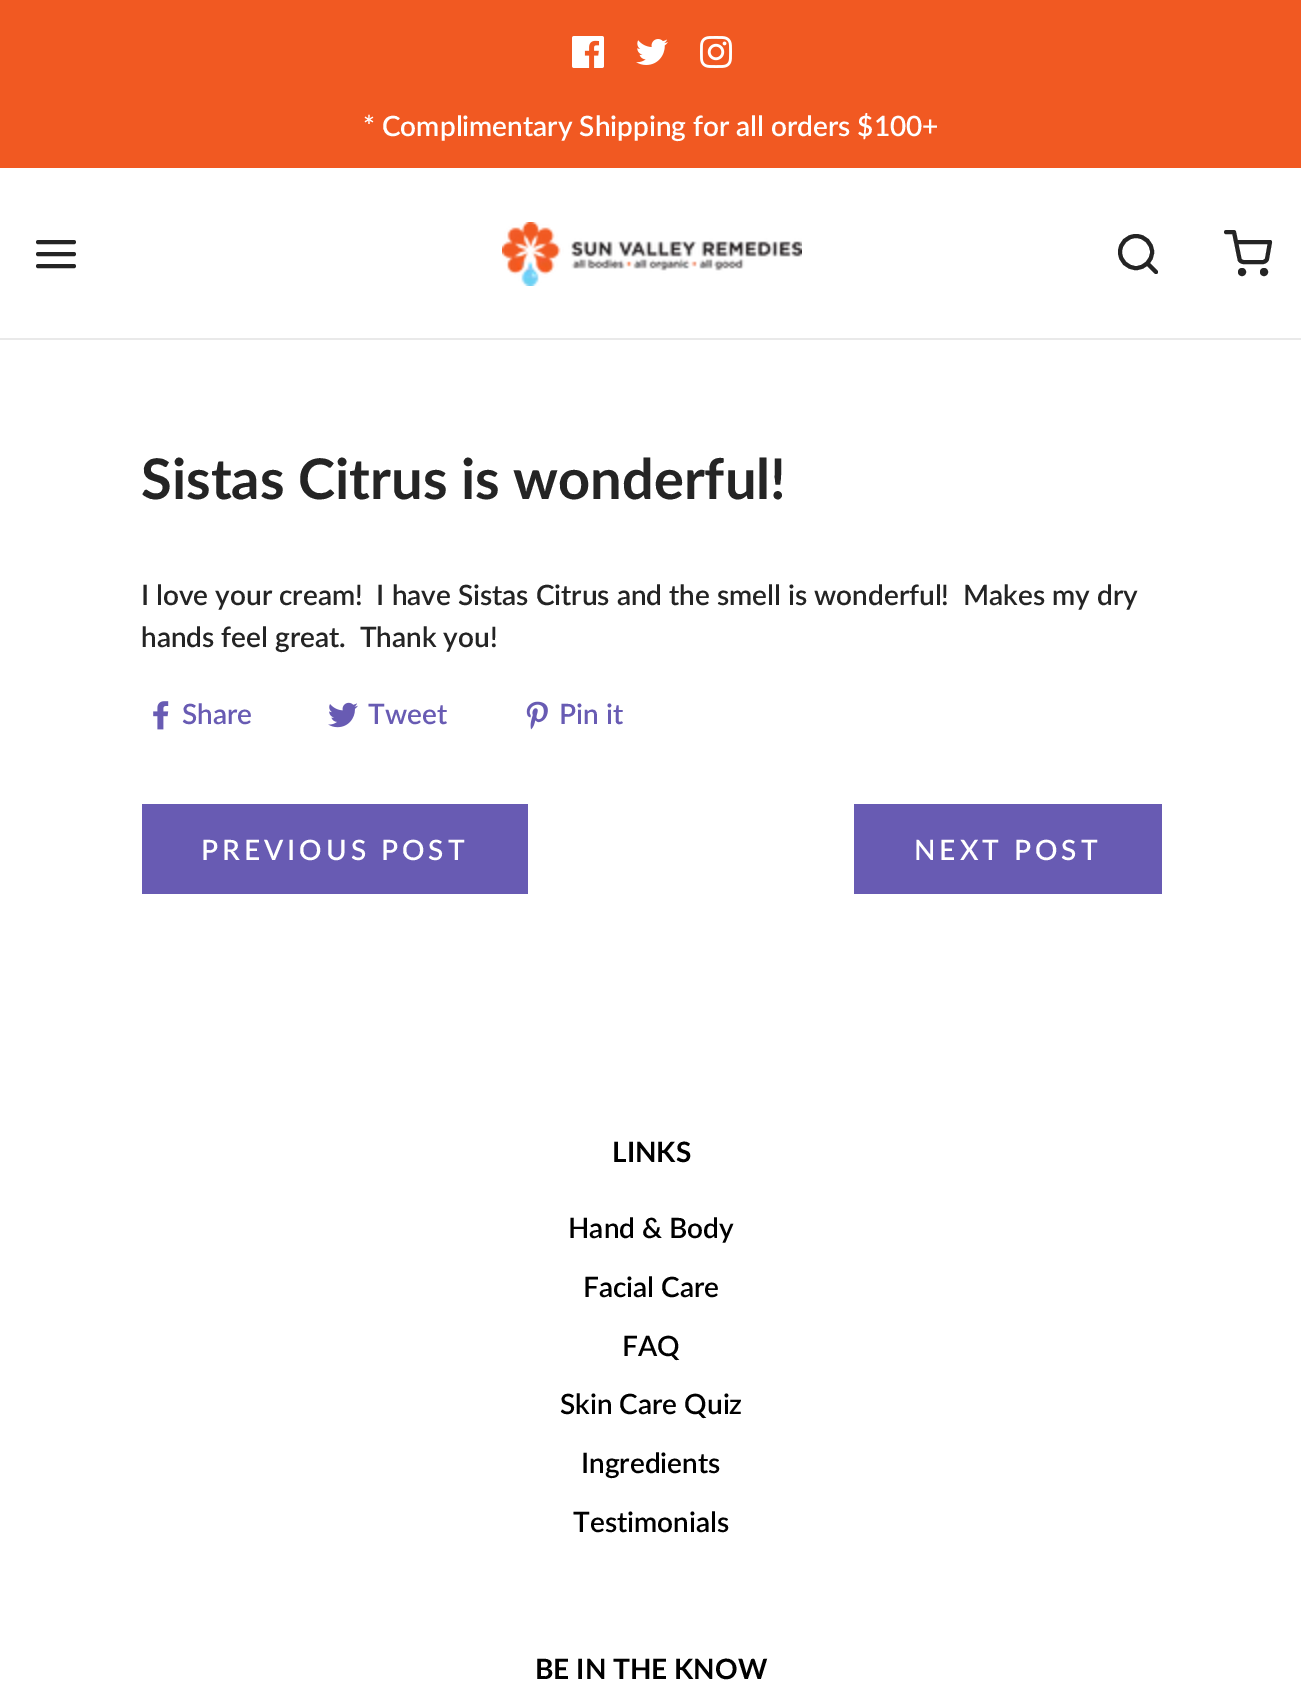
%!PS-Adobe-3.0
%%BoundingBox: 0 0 1301 1706
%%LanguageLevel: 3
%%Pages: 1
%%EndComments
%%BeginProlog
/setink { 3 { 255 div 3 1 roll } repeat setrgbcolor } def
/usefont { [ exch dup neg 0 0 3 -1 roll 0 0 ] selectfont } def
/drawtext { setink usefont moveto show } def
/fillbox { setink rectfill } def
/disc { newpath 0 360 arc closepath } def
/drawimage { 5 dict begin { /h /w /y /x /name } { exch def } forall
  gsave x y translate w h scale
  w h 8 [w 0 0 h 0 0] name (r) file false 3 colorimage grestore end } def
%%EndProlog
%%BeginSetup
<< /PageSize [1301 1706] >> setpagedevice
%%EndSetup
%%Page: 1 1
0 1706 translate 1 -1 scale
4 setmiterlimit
0 0 1301 1706 255 255 255 fillbox
0 0 1301 168 241 89 34 fillbox
(assets/img1.rgb) 572 36 32 32 drawimage
(assets/img2.rgb) 636 39 32 26 drawimage
(assets/img3.rgb) 700 36 32 32 drawimage
(* Complimentary Shipping for all orders $100+) 363 136 /Lato-SemiBold 28 255 255 255 drawtext
0 338 1301 2 233 233 233 fillbox
36 36 36 setink
4 setlinewidth
1 setlinecap
1 setlinejoin
38 254 moveto 74 254 lineto 38 242 moveto 74 242 lineto 38 266 moveto 74 266 lineto stroke
(assets/img4.rgb) 502 222 300 64 drawimage
0 setlinecap
0 setlinejoin
1136 252 16 disc stroke
1 setlinecap
1 setlinejoin
1156 272 moveto 1147.5 263.5 lineto stroke
0 setlinecap
0 setlinejoin
1242 272 2 disc stroke
1264 272 2 disc stroke
1 setlinecap
1 setlinejoin
1226 232 moveto 1234 232 lineto 1239.5 259 lineto 1239.5 260.5 1241.5 262 1243.5 262 curveto 1263 262 lineto 1264.5 262 1266.5 260.5 1267 259 curveto 1270 242 lineto 1236 242 lineto stroke
(Sistas Citrus is wonderful!) 141 499 /Lato-Bold 56 36 36 36 drawtext
(I love your cream!  I have Sistas Citrus and the smell is wonderful!  Makes my dry) 141 605 /Lato-SemiBold 28 36 36 36 drawtext
(hands feel great.  Thank you!) 141 647 /Lato-SemiBold 28 36 36 36 drawtext
(assets/img5.rgb) 153 701 16 29 drawimage
(Share) 182 724 /Lato-SemiBold 28 104 91 179 drawtext
(assets/img6.rgb) 328 702 30 26 drawimage
(Tweet) 368 724 /Lato-SemiBold 28 104 91 179 drawtext
(assets/img7.rgb) 526 701 22 29 drawimage
(Pin it) 559 724 /Lato-SemiBold 28 104 91 179 drawtext
142 804 386 90 104 91 179 fillbox
255 255 255 setink
201 860 moveto 4 0 (PREVIOUS POST) ashow
854 804 308 90 104 91 179 fillbox
255 255 255 setink
914 860 moveto 4 0 (NEXT POST) ashow
(LINKS) 612 1162 /Lato-Bold 28 0 0 0 drawtext
(Hand & Body) 568 1238 /Lato-SemiBold 28 0 0 0 drawtext
(Facial Care) 583 1297 /Lato-SemiBold 28 0 0 0 drawtext
(FAQ) 622 1356 /Lato-SemiBold 28 0 0 0 drawtext
(Skin Care Quiz) 560 1414 /Lato-SemiBold 28 0 0 0 drawtext
(Ingredients) 581 1473 /Lato-SemiBold 28 0 0 0 drawtext
(Testimonials) 573 1532 /Lato-SemiBold 28 0 0 0 drawtext
(BE IN THE KNOW) 535 1679 /Lato-Bold 28 0 0 0 drawtext
showpage
%%EOF
